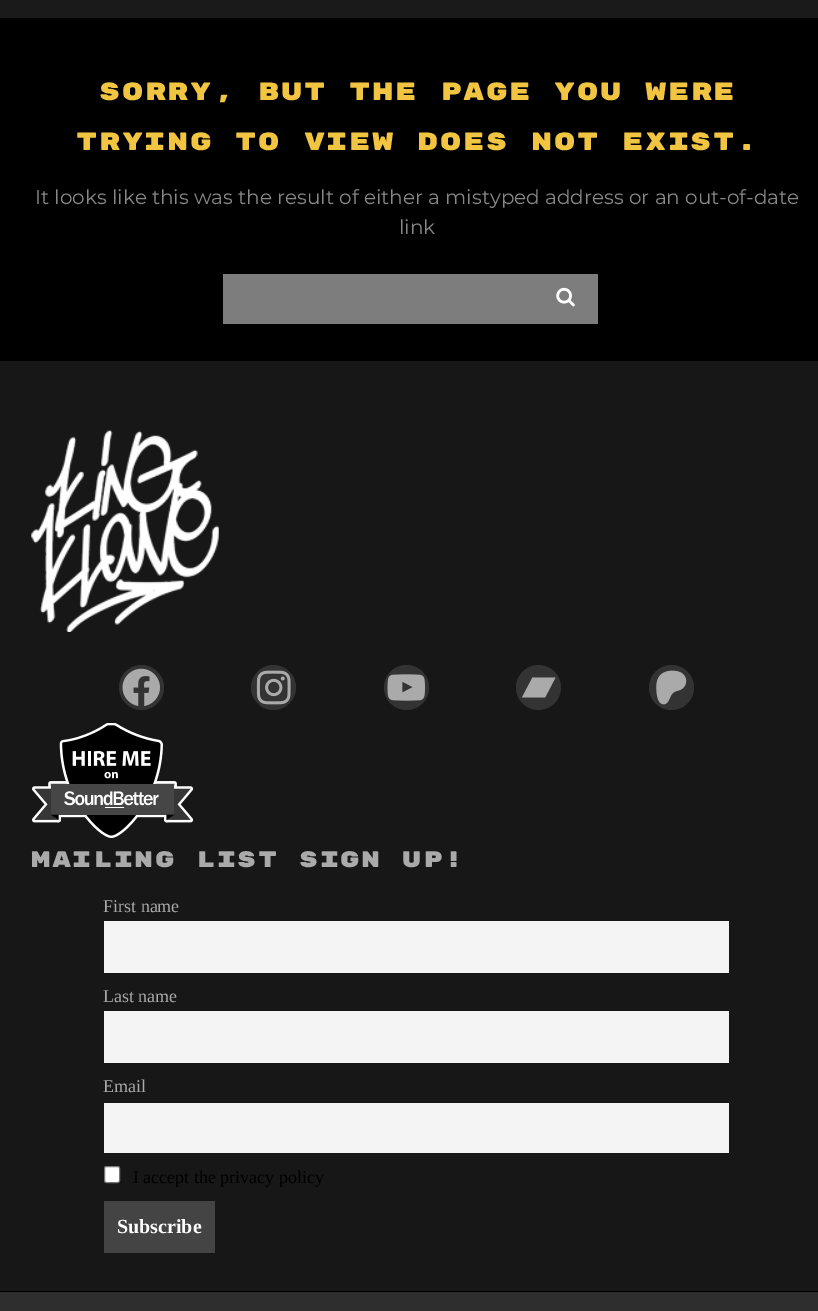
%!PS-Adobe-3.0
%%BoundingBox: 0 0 818 1311
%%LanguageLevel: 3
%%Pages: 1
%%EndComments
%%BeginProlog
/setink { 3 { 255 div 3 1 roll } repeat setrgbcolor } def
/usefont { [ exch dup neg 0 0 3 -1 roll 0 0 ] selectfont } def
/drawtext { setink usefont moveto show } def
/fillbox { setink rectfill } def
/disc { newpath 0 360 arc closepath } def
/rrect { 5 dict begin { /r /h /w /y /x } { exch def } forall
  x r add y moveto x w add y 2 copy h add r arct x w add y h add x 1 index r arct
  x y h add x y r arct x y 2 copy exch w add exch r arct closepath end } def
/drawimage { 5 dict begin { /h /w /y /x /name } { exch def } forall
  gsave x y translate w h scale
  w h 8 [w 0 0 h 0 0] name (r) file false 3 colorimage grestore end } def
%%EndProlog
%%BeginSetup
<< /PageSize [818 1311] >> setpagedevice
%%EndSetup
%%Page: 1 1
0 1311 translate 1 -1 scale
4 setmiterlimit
0 0 818 1311 0 0 0 fillbox
0 0 818 18 26 26 26 fillbox
/RubikMonoOne-Regular 25 usefont
241 196 66 setink
99 100 moveto 1.5 0 (Sorry, but the page you were) ashow
76 150 moveto 1.5 0 (trying to view does not exist.) ashow
(It looks like this was the result of either a mistyped address or an out-of-date) 35 204 /Montserrat-Regular 20 136 136 136 drawtext
(link) 399 234 /Montserrat-Regular 20 136 136 136 drawtext
223 274 375 50 125 125 125 fillbox
(assets/img1.rgb) 556 287 19 20 drawimage
0 361 818 930 23 23 23 fillbox
(assets/img2.rgb) 31 430 188 202 drawimage
51 51 51 setink
141.5 687.5 22.5 disc fill
(assets/img3.rgb) 122 668 38 38 drawimage
273.5 687.5 22.5 disc fill
(assets/img4.rgb) 256 670 35 35 drawimage
406.5 687.5 22.5 disc fill
(assets/img5.rgb) 387 674 38 27 drawimage
538.5 687.5 22.5 disc fill
170 170 170 setink
545 697.5 moveto 522 697.5 lineto 532.5 677.5 lineto 555.5 677.5 lineto 545 697.5 lineto fill
51 51 51 setink
671.5 687.5 22.5 disc fill
(assets/img6.rgb) 656 670 31 35 drawimage
(assets/img7.rgb) 32 723 162 115 drawimage
/RubikMonoOne-Regular 22.5 usefont
170 170 170 setink
31 867 moveto 1.5 0 (Mailing list sign up!) ashow
(First name) 103 912 /LiberationSerif-Regular 18 170 170 170 drawtext
104 921 625 52 244 244 244 fillbox
(Last name) 103 1002 /LiberationSerif-Regular 18 170 170 170 drawtext
104 1011 625 52 244 244 244 fillbox
(Email) 103 1092 /LiberationSerif-Regular 18 170 170 170 drawtext
104 1103 625 50 244 244 244 fillbox
255 255 255 setink
104.5 1166.5 15 16 2 rrect gsave fill grestore
118 118 118 setink
stroke
(I accept the privacy policy) 133 1183 /LiberationSerif-Regular 18 0 0 0 drawtext
104 1201 111 52 68 68 68 fillbox
(Subscribe) 117 1233 /LiberationSerif-Bold 20 255 255 255 drawtext
0 1292 818 19 46 46 46 fillbox
showpage
%%EOF
